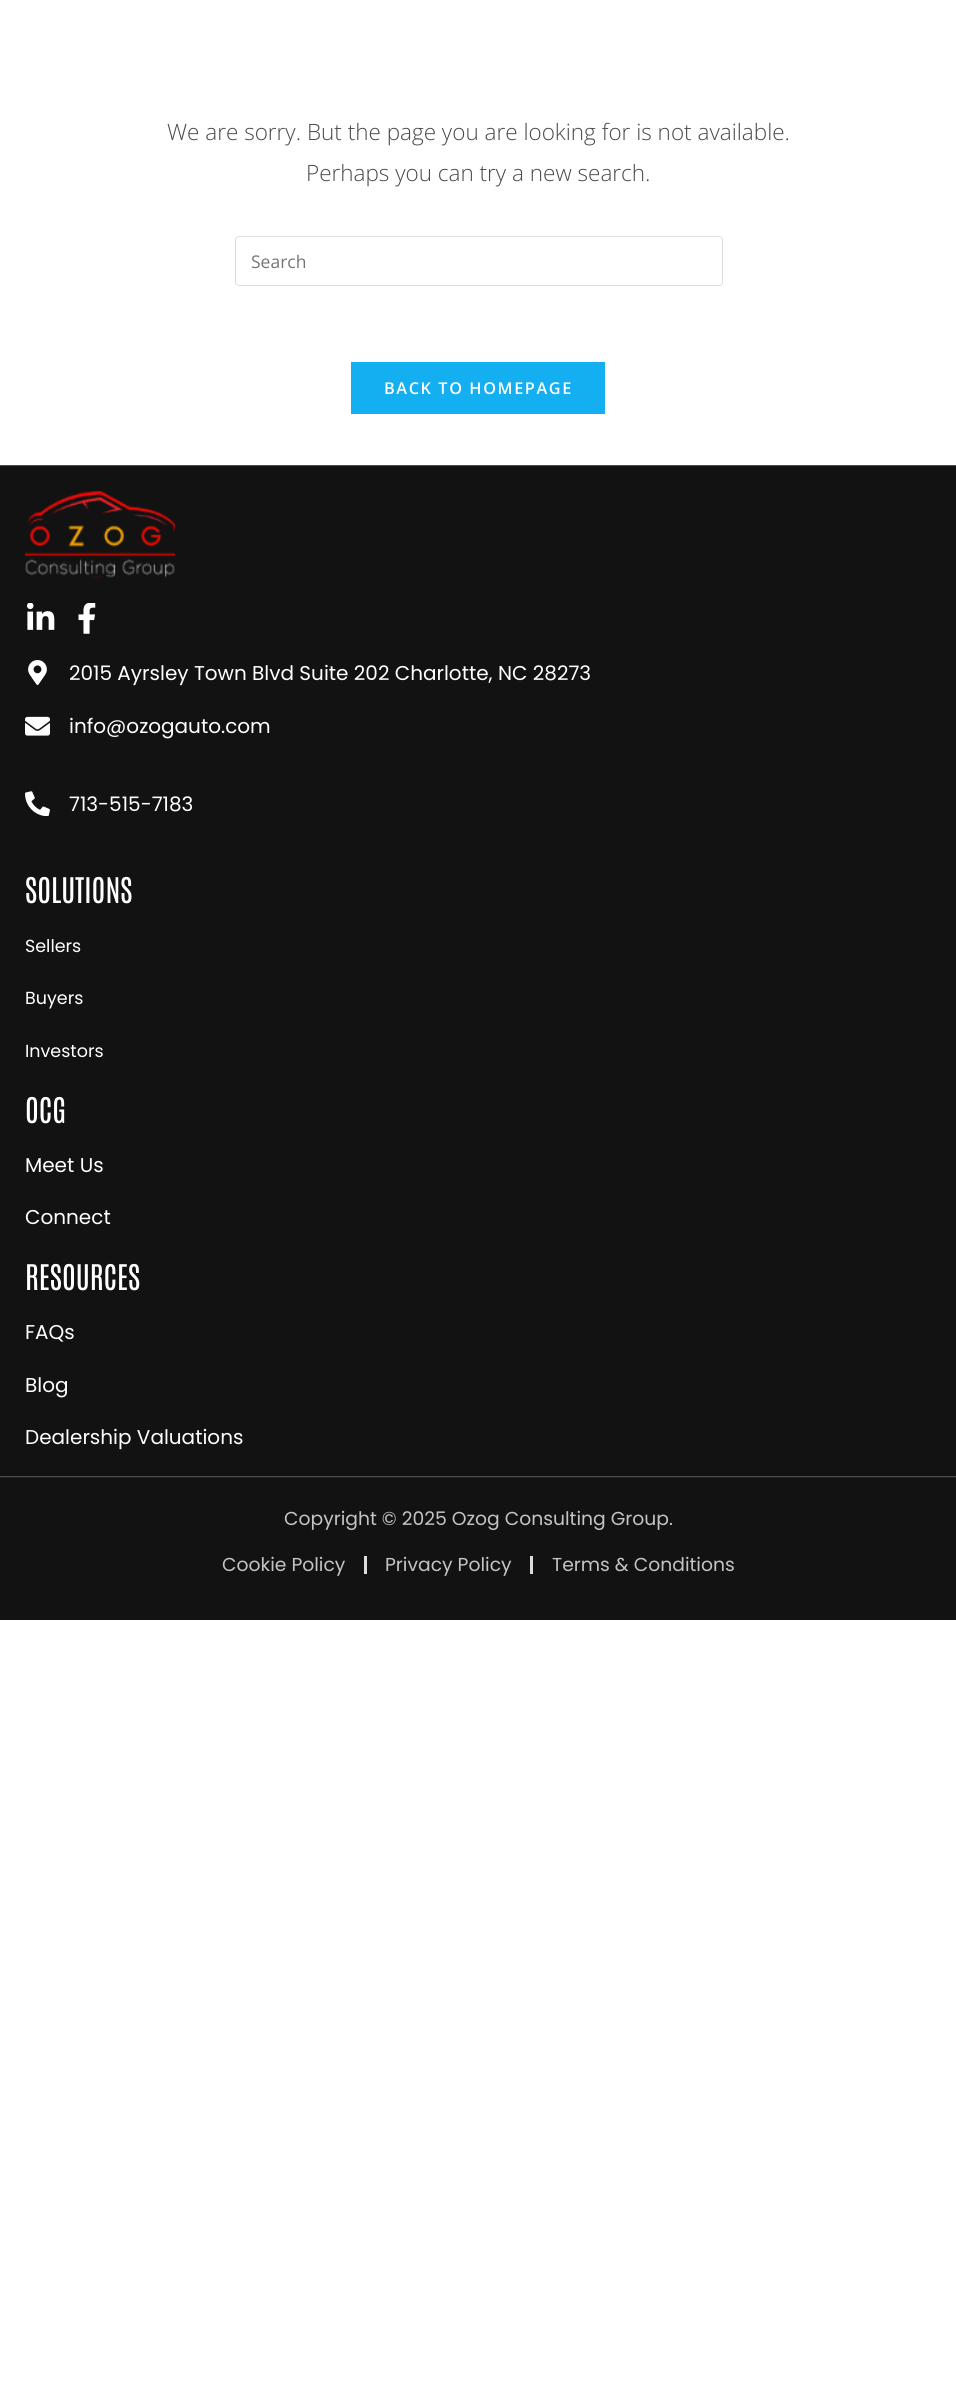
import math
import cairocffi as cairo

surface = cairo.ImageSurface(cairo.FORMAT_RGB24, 956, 2397)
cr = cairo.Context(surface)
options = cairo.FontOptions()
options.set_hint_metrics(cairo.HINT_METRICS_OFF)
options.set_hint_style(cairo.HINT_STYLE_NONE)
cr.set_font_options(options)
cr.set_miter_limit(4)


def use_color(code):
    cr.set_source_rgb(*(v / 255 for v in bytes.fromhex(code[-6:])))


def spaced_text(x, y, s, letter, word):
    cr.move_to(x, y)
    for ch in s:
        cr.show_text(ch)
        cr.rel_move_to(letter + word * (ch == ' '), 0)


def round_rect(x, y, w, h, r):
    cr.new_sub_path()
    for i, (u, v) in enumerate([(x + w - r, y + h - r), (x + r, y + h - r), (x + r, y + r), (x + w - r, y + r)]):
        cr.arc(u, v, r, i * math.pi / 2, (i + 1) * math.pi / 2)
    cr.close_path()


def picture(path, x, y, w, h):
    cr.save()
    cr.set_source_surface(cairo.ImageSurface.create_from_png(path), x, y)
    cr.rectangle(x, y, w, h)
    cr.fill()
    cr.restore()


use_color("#ffffff")
cr.paint()
cr.select_font_face("Open Sans Light")
cr.set_font_size(22.5)
use_color("#4a4a4a")
cr.move_to(167, 140)
cr.show_text("We are sorry. But the page you are looking for is not available.")
cr.move_to(306, 181)
cr.show_text("Perhaps you can try a new search.")
round_rect(235.5, 236.5, 487, 49, 3.5)
use_color("#dddddd")
cr.set_line_width(1)
cr.stroke()
cr.select_font_face("Open Sans")
cr.set_font_size(17.5)
use_color("#757575")
cr.move_to(251, 268)
cr.show_text("Search")
use_color("#13aff0")
cr.rectangle(351, 362, 254, 52)
cr.fill()
cr.select_font_face("Open Sans SemiBold")
cr.set_font_size(16.25)
use_color("#ffffff")
spaced_text(384, 394, "BACK TO HOMEPAGE", 1.6, 0)
use_color("#222222")
cr.rectangle(0, 1477, 956, 1)
cr.fill()
use_color("#121212")
cr.rectangle(0, 466, 956, 1010)
cr.fill()
use_color("#4d4d4d")
cr.rectangle(0, 465, 956, 1)
cr.fill()
cr.rectangle(0, 1476, 956, 1)
cr.fill()
picture("img1.png", 25, 491, 150, 87)
picture("img2.png", 27, 603, 28, 27)
picture("img3.png", 78, 603, 18, 31)
picture("img4.png", 28, 660, 19, 25)
cr.select_font_face("Poppins")
cr.set_font_size(20)
use_color("#ffffff")
cr.move_to(69, 680)
cr.show_text("2015 Ayrsley Town Blvd Suite 202 Charlotte, NC 28273")
picture("img5.png", 25, 716, 25, 20)
cr.move_to(69, 733)
cr.show_text("info@ozogauto.com")
picture("img6.png", 25, 791, 25, 25)
cr.move_to(69, 811)
cr.show_text("713-515-7183")
cr.select_font_face("Antonio")
cr.set_font_size(30)
cr.move_to(25, 903)
cr.show_text("SOLUTIONS")
cr.select_font_face("Poppins")
cr.set_font_size(17.5)
cr.move_to(25, 952)
cr.show_text("Sellers")
cr.move_to(25, 1004)
cr.show_text("Buyers")
cr.move_to(25, 1057)
cr.show_text("Investors")
cr.select_font_face("Antonio")
cr.set_font_size(30)
cr.move_to(25, 1123)
cr.show_text("OCG")
cr.select_font_face("Poppins")
cr.set_font_size(20)
cr.move_to(25, 1172)
cr.show_text("Meet Us")
cr.move_to(25, 1224)
cr.show_text("Connect")
cr.select_font_face("Antonio")
cr.set_font_size(30)
cr.move_to(25, 1290)
cr.show_text("RESOURCES")
cr.select_font_face("Poppins")
cr.set_font_size(20)
cr.move_to(25, 1339)
cr.show_text("FAQs")
cr.move_to(25, 1392)
cr.show_text("Blog")
cr.move_to(25, 1444)
cr.show_text("Dealership Valuations")
use_color("#121212")
cr.rectangle(0, 1478, 956, 142)
cr.fill()
cr.set_font_size(18.75)
use_color("#c4c4c4")
cr.move_to(284, 1525)
cr.show_text("Copyright © 2025 Ozog Consulting Group.")
cr.move_to(222, 1571)
cr.show_text("Cookie Policy")
use_color("#dddddd")
cr.rectangle(364, 1556, 3, 18)
cr.fill()
use_color("#c4c4c4")
cr.move_to(385, 1571)
cr.show_text("Privacy Policy")
use_color("#dddddd")
cr.rectangle(530, 1556, 3, 18)
cr.fill()
use_color("#c4c4c4")
cr.move_to(552, 1571)
cr.show_text("Terms & Conditions")
surface.write_to_png("result.png")
